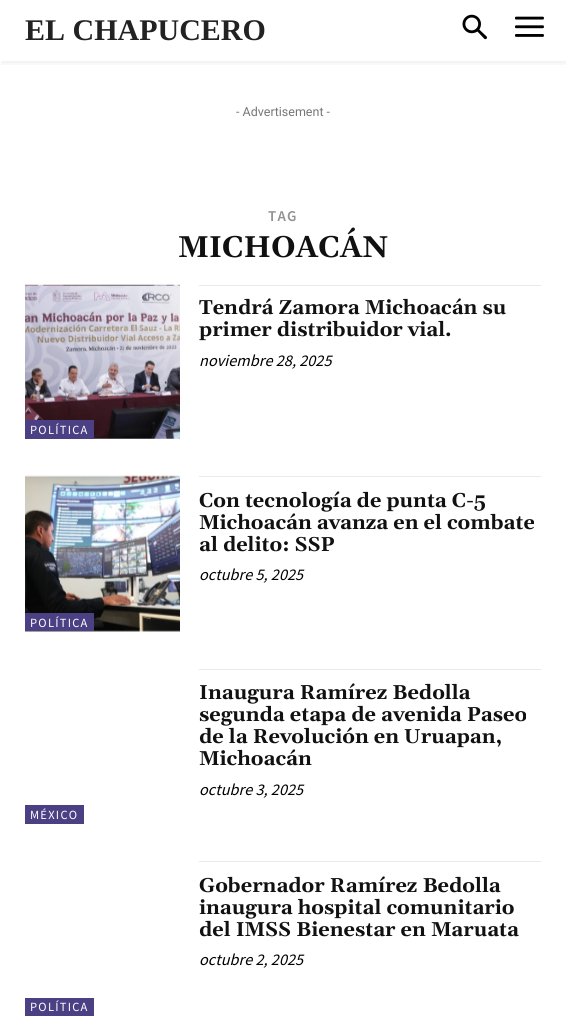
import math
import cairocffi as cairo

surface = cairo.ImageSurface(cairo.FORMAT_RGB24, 566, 1025)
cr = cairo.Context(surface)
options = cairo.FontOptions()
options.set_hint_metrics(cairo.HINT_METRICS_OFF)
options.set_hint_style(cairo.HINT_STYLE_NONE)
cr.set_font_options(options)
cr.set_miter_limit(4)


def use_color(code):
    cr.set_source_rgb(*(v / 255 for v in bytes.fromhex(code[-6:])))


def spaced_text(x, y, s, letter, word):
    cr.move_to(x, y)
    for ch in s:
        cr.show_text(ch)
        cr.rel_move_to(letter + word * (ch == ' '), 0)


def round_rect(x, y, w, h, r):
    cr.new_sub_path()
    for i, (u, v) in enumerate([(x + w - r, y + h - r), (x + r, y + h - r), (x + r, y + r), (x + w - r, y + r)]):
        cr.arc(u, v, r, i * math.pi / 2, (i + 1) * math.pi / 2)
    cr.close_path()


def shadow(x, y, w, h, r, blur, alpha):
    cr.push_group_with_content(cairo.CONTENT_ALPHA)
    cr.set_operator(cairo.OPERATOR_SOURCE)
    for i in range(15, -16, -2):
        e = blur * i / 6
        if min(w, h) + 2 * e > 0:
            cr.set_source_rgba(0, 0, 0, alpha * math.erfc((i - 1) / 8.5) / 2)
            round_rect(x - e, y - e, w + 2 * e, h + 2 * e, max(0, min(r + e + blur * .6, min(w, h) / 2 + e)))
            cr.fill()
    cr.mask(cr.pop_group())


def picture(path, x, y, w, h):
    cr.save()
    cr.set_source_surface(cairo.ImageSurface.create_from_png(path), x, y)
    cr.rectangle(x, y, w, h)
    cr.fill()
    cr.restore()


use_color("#ffffff")
cr.paint()
picture("img1.png", 462, 14, 25, 26)
picture("img2.png", 515, 16, 29, 21)
cr.save()
cr.rectangle(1, 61, 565, 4)
cr.clip()
use_color("#000000")
shadow(1, 3, 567, 61, 0, 2.5, 0.06)
cr.restore()
cr.select_font_face("Liberation Serif", cairo.FONT_SLANT_NORMAL, cairo.FONT_WEIGHT_BOLD)
cr.set_font_size(30)
use_color("#222222")
cr.move_to(25, 40)
cr.show_text("EL CHAPUCERO")
cr.select_font_face("Roboto")
cr.set_font_size(12.5)
use_color("#767676")
cr.move_to(236, 116)
cr.show_text("- Advertisement -")
cr.select_font_face("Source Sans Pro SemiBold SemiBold")
cr.set_font_size(15)
use_color("#919191")
spaced_text(268, 221, "TAG", 1.25, 0)
cr.select_font_face("Gelasio", cairo.FONT_SLANT_NORMAL, cairo.FONT_WEIGHT_BOLD)
cr.set_font_size(30)
use_color("#111111")
cr.move_to(178, 257)
cr.show_text("MICHOACÁN")
use_color("#eaeaea")
cr.rectangle(199, 285, 342, 1)
cr.fill()
cr.set_font_size(20)
use_color("#111111")
cr.move_to(199, 314)
cr.show_text("Tendrá Zamora Michoacán su")
cr.move_to(199, 336)
cr.show_text("primer distribuidor vial.")
cr.select_font_face("Source Sans Pro", cairo.FONT_SLANT_ITALIC)
cr.set_font_size(16.25)
use_color("#000000")
cr.move_to(199, 366)
cr.show_text("noviembre 28, 2025")
picture("img3.png", 25, 284, 155, 155)
use_color("#4c4084")
cr.rectangle(25, 420, 69, 19)
cr.fill()
cr.select_font_face("Source Sans Pro")
cr.set_font_size(12.5)
use_color("#ffffff")
spaced_text(30, 434, "POLÍTICA", 1.25, 0)
use_color("#eaeaea")
cr.rectangle(199, 476, 342, 1)
cr.fill()
cr.select_font_face("Gelasio", cairo.FONT_SLANT_NORMAL, cairo.FONT_WEIGHT_BOLD)
cr.set_font_size(20)
use_color("#111111")
cr.move_to(199, 507)
cr.show_text("Con tecnología de punta C-5")
cr.move_to(199, 529)
cr.show_text("Michoacán avanza en el combate")
cr.move_to(199, 551)
cr.show_text("al delito: SSP")
cr.select_font_face("Source Sans Pro", cairo.FONT_SLANT_ITALIC)
cr.set_font_size(16.25)
use_color("#000000")
cr.move_to(199, 580)
cr.show_text("octubre 5, 2025")
picture("img4.png", 25, 475, 155, 157)
use_color("#4c4084")
cr.rectangle(25, 613, 69, 18)
cr.fill()
cr.select_font_face("Source Sans Pro")
cr.set_font_size(12.5)
use_color("#ffffff")
spaced_text(30, 627, "POLÍTICA", 1.25, 0)
use_color("#eaeaea")
cr.rectangle(199, 669, 342, 1)
cr.fill()
cr.select_font_face("Gelasio", cairo.FONT_SLANT_NORMAL, cairo.FONT_WEIGHT_BOLD)
cr.set_font_size(20)
use_color("#111111")
cr.move_to(199, 699)
cr.show_text("Inaugura Ramírez Bedolla")
cr.move_to(199, 721)
cr.show_text("segunda etapa de avenida Paseo")
cr.move_to(199, 743)
cr.show_text("de la Revolución en Uruapan,")
cr.move_to(199, 765)
cr.show_text("Michoacán")
cr.select_font_face("Source Sans Pro", cairo.FONT_SLANT_ITALIC)
cr.set_font_size(16.25)
use_color("#000000")
cr.move_to(199, 795)
cr.show_text("octubre 3, 2025")
use_color("#4c4084")
cr.rectangle(25, 805, 59, 19)
cr.fill()
cr.select_font_face("Source Sans Pro")
cr.set_font_size(12.5)
use_color("#ffffff")
spaced_text(30, 819, "MÉXICO", 1.25, 0)
use_color("#eaeaea")
cr.rectangle(199, 861, 342, 1)
cr.fill()
cr.select_font_face("Gelasio", cairo.FONT_SLANT_NORMAL, cairo.FONT_WEIGHT_BOLD)
cr.set_font_size(20)
use_color("#111111")
cr.move_to(199, 892)
cr.show_text("Gobernador Ramírez Bedolla")
cr.move_to(199, 914)
cr.show_text("inaugura hospital comunitario")
cr.move_to(199, 936)
cr.show_text("del IMSS Bienestar en Maruata")
cr.select_font_face("Source Sans Pro", cairo.FONT_SLANT_ITALIC)
cr.set_font_size(16.25)
use_color("#000000")
cr.move_to(199, 965)
cr.show_text("octubre 2, 2025")
use_color("#4c4084")
cr.rectangle(25, 998, 69, 18)
cr.fill()
cr.select_font_face("Source Sans Pro")
cr.set_font_size(12.5)
use_color("#ffffff")
spaced_text(30, 1011, "POLÍTICA", 1.25, 0)
surface.write_to_png("result.png")
